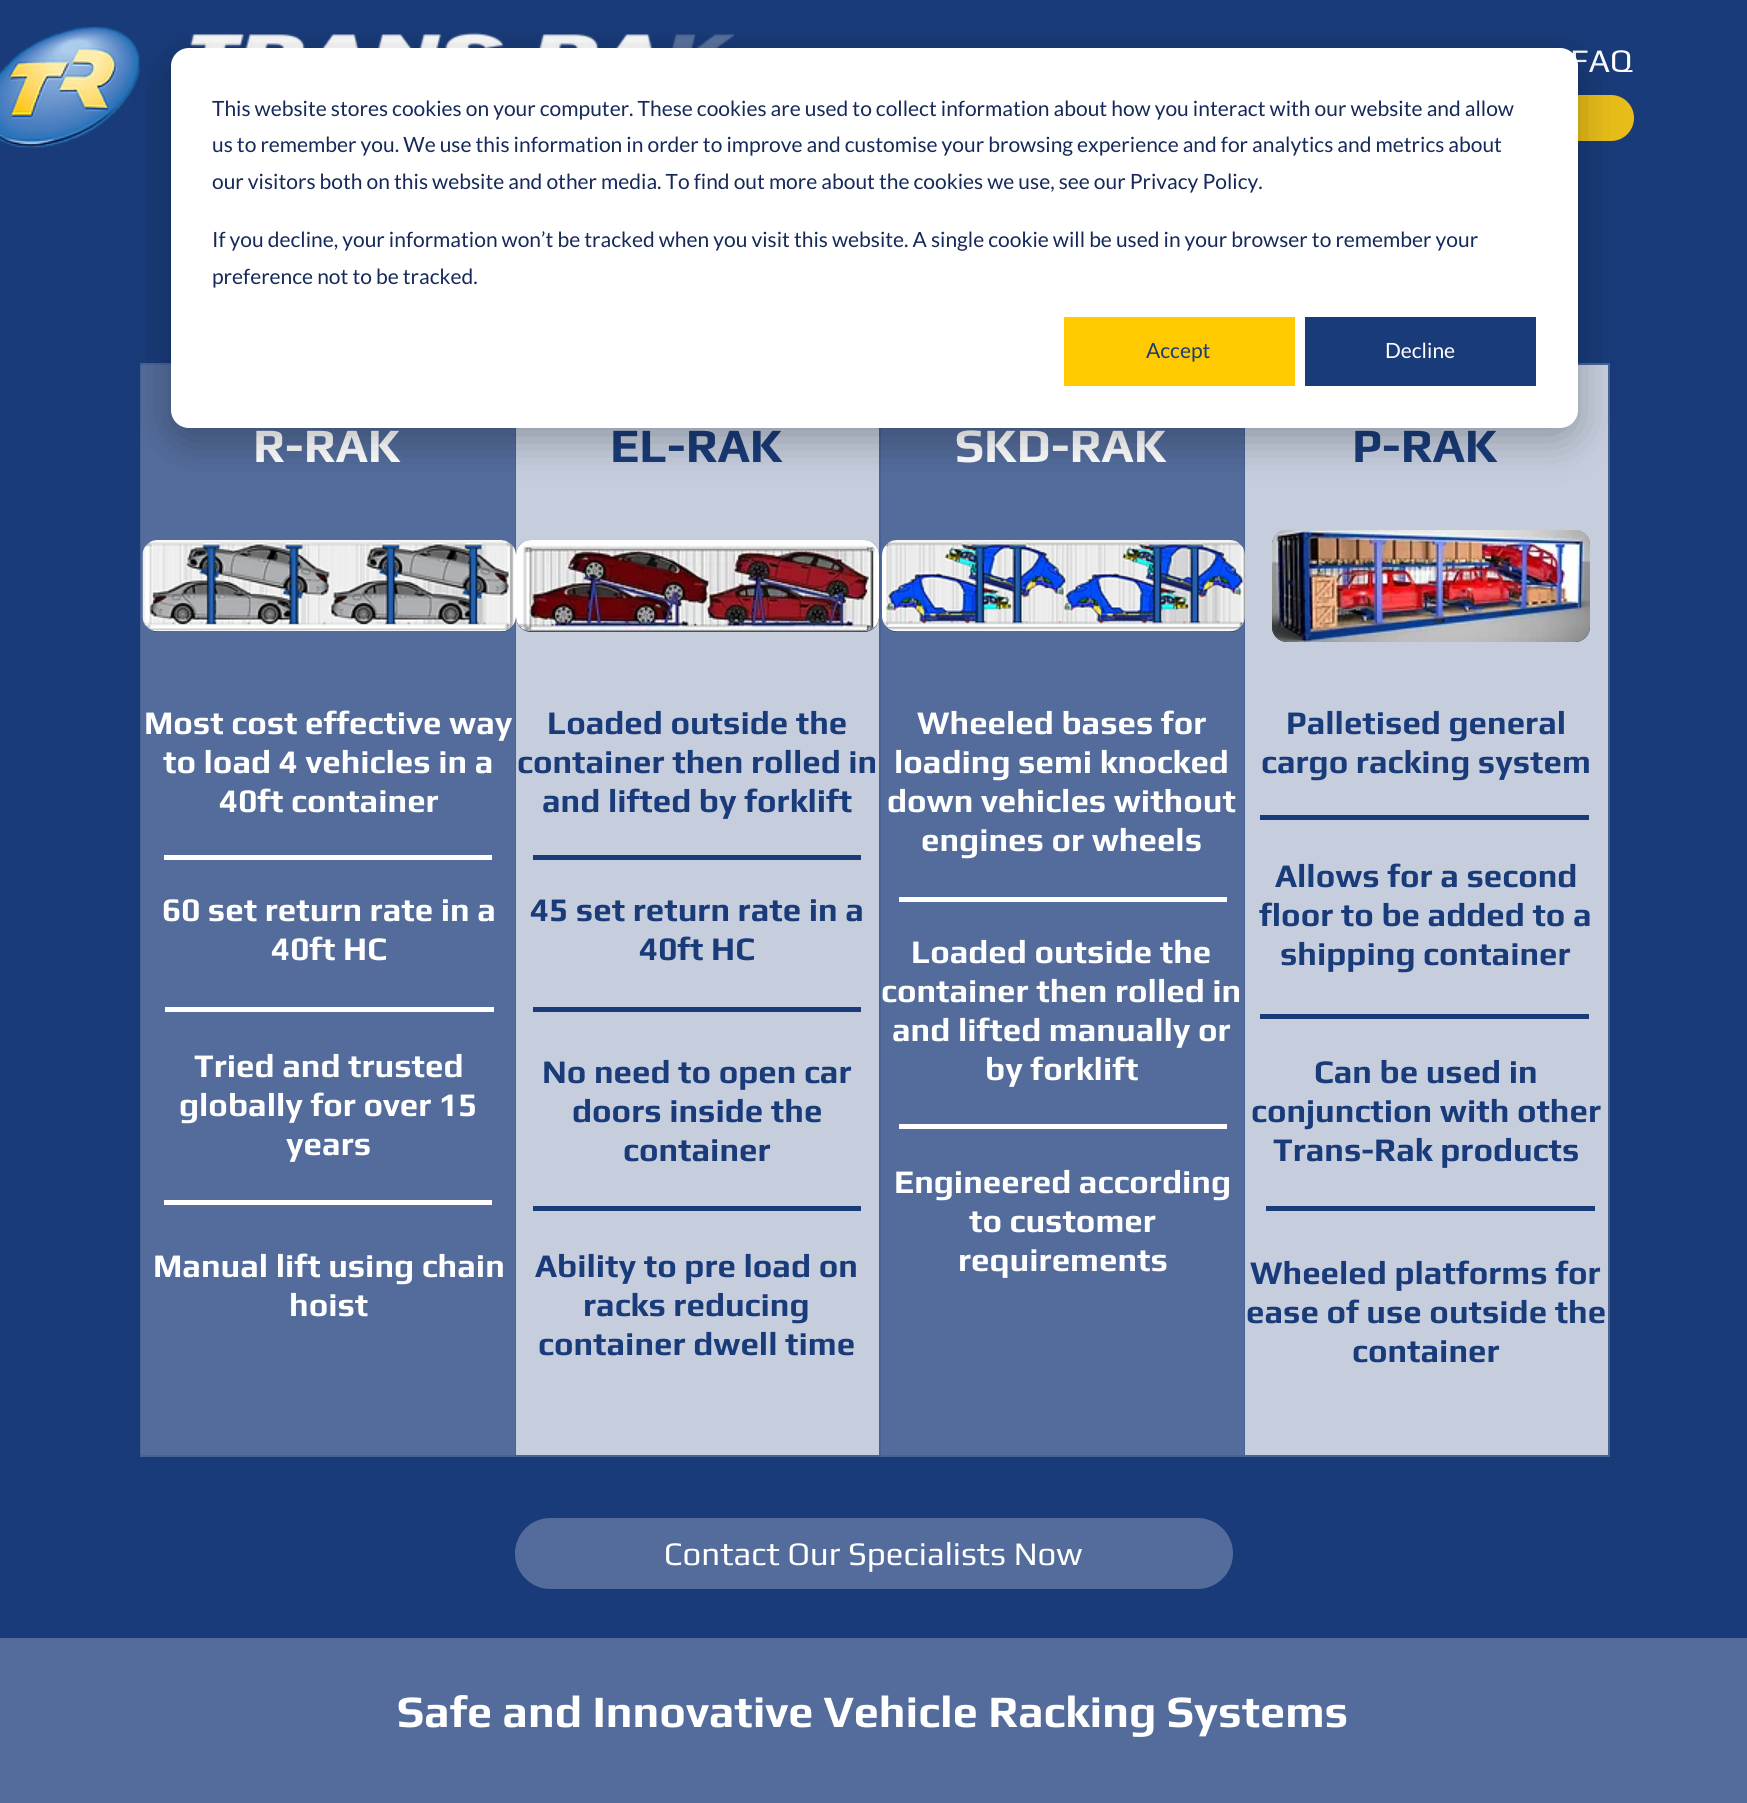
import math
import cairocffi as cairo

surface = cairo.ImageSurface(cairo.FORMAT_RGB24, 1747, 1803)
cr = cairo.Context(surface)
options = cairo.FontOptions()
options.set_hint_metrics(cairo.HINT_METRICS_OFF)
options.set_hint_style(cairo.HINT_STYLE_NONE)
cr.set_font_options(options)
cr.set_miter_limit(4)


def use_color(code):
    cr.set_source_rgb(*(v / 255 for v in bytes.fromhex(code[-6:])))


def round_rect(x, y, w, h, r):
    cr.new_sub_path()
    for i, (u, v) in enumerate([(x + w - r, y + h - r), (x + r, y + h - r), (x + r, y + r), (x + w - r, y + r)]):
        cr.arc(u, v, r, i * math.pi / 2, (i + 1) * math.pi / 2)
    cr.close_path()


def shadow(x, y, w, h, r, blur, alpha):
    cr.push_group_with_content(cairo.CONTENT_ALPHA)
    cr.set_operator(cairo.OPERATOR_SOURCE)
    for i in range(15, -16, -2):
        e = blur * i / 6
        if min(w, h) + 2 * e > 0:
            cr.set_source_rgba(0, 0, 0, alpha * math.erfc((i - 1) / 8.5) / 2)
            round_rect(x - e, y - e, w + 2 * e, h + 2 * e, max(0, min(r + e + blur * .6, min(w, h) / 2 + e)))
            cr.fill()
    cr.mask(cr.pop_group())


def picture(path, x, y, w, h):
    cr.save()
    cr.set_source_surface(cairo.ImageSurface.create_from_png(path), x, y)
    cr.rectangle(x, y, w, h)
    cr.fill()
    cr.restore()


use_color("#193b79")
cr.paint()
picture("img1.png", 0, 26, 736, 123)
cr.set_source_rgba(0.098, 0.231, 0.475, 0.71)
cr.rectangle(654, 34, 82, 105)
cr.fill()
cr.select_font_face("Play")
cr.set_font_size(33)
use_color("#ffffff")
cr.move_to(1570, 72)
cr.show_text("FAQ")
use_color("#e8bd19")
round_rect(1368, 95, 266, 46, 23)
cr.fill()
use_color("#476295")
cr.rectangle(140, 363, 1470, 1094)
cr.fill()
use_color("#536c9b")
cr.rectangle(141, 365, 374, 1090)
cr.fill()
cr.select_font_face("Play", cairo.FONT_SLANT_NORMAL, cairo.FONT_WEIGHT_BOLD)
cr.set_font_size(48)
use_color("#ffffff")
cr.move_to(253, 462)
cr.show_text("R-RAK")
use_color("#193b79")
round_rect(143, 540, 373, 92, 15)
cr.fill()
picture("img2.png", 142, 540, 374, 92)
cr.set_font_size(33)
use_color("#ffffff")
cr.move_to(144, 734)
cr.show_text("Most cost effective way")
cr.move_to(163, 773)
cr.show_text("to load 4 vehicles in a")
cr.move_to(219, 812)
cr.show_text("40ft container")
cr.rectangle(164, 855, 328, 5)
cr.fill()
cr.move_to(162, 921)
cr.show_text("60 set return rate in a")
cr.move_to(271, 960)
cr.show_text("40ft HC")
cr.rectangle(165, 1007, 329, 5)
cr.fill()
cr.move_to(194, 1077)
cr.show_text("Tried and trusted")
cr.move_to(179, 1116)
cr.show_text("globally for over 15")
cr.move_to(286, 1155)
cr.show_text("years")
cr.rectangle(164, 1200, 328, 5)
cr.fill()
cr.move_to(153, 1277)
cr.show_text("Manual lift using chain")
cr.move_to(289, 1316)
cr.show_text("hoist")
use_color("#c6cede")
cr.rectangle(516, 428, 363, 1027)
cr.fill()
cr.set_font_size(48)
use_color("#193b79")
cr.move_to(610, 462)
cr.show_text("EL-RAK")
round_rect(516, 540, 363, 92, 15)
cr.fill()
picture("img3.png", 516, 540, 363, 92)
cr.set_font_size(33)
cr.move_to(547, 734)
cr.show_text("Loaded outside the")
cr.move_to(517, 773)
cr.show_text("container then rolled in")
cr.move_to(542, 812)
cr.show_text("and lifted by forklift")
cr.rectangle(533, 855, 328, 5)
cr.fill()
cr.move_to(530, 921)
cr.show_text("45 set return rate in a")
cr.move_to(639, 960)
cr.show_text("40ft HC")
cr.rectangle(533, 1007, 328, 5)
cr.fill()
cr.move_to(542, 1083)
cr.show_text("No need to open car")
cr.move_to(572, 1122)
cr.show_text("doors inside the")
cr.move_to(623, 1161)
cr.show_text("container")
cr.rectangle(533, 1206, 328, 5)
cr.fill()
cr.move_to(535, 1277)
cr.show_text("Ability to pre load on")
cr.move_to(583, 1316)
cr.show_text("racks reducing")
cr.move_to(538, 1355)
cr.show_text("container dwell time")
use_color("#536c9b")
cr.rectangle(881, 428, 363, 1027)
cr.fill()
cr.set_font_size(48)
use_color("#ffffff")
cr.move_to(955, 462)
cr.show_text("SKD-RAK")
use_color("#193b79")
round_rect(882, 540, 363, 92, 15)
cr.fill()
picture("img4.png", 882, 540, 363, 92)
cr.set_font_size(33)
use_color("#ffffff")
cr.move_to(917, 734)
cr.show_text("Wheeled bases for")
cr.move_to(894, 773)
cr.show_text("loading semi knocked")
cr.move_to(887, 812)
cr.show_text("down vehicles without")
cr.move_to(921, 851)
cr.show_text("engines or wheels")
cr.rectangle(899, 897, 328, 5)
cr.fill()
cr.move_to(911, 963)
cr.show_text("Loaded outside the")
cr.move_to(881, 1002)
cr.show_text("container then rolled in")
cr.move_to(892, 1041)
cr.show_text("and lifted manually or")
cr.move_to(985, 1080)
cr.show_text("by forklift")
cr.rectangle(899, 1124, 328, 5)
cr.fill()
cr.move_to(894, 1193)
cr.show_text("Engineered according")
cr.move_to(969, 1232)
cr.show_text("to customer")
cr.move_to(958, 1271)
cr.show_text("requirements")
use_color("#c6cede")
cr.rectangle(1245, 365, 363, 1090)
cr.fill()
cr.set_font_size(48)
use_color("#193b79")
cr.move_to(1352, 462)
cr.show_text("P-RAK")
round_rect(1272, 530, 318, 112, 15)
cr.fill()
picture("img5.png", 1272, 530, 318, 112)
cr.set_font_size(33)
cr.move_to(1286, 734)
cr.show_text("Palletised general")
cr.move_to(1261, 773)
cr.show_text("cargo racking system")
cr.rectangle(1260, 815, 329, 5)
cr.fill()
cr.move_to(1275, 887)
cr.show_text("Allows for a second")
cr.move_to(1259, 926)
cr.show_text("floor to be added to a")
cr.move_to(1280, 965)
cr.show_text("shipping container")
cr.rectangle(1260, 1014, 329, 5)
cr.fill()
cr.move_to(1314, 1083)
cr.show_text("Can be used in")
cr.move_to(1251, 1122)
cr.show_text("conjunction with other")
cr.move_to(1273, 1161)
cr.show_text("Trans-Rak products")
cr.rectangle(1266, 1206, 329, 5)
cr.fill()
cr.move_to(1250, 1284)
cr.show_text("Wheeled platforms for")
cr.move_to(1246, 1323)
cr.show_text("ease of use outside the")
cr.move_to(1352, 1362)
cr.show_text("container")
use_color("#536c9b")
round_rect(515, 1518, 718, 71, 35.5)
cr.fill()
cr.select_font_face("Play")
use_color("#ffffff")
cr.move_to(664, 1565)
cr.show_text("Contact Our Specialists Now")
use_color("#536c9b")
cr.rectangle(0, 1638, 1747, 165)
cr.fill()
cr.select_font_face("Play", cairo.FONT_SLANT_NORMAL, cairo.FONT_WEIGHT_BOLD)
cr.set_font_size(45)
use_color("#ffffff")
cr.move_to(397, 1727)
cr.show_text("Safe and Innovative Vehicle Racking Systems")
use_color("#000000")
shadow(171, 60, 1407, 380, 18, 21, 0.28)
use_color("#ffffff")
round_rect(171, 48, 1407, 380, 18)
cr.fill()
cr.select_font_face("Lato")
cr.set_font_size(21)
use_color("#15295a")
cr.move_to(212, 116)
cr.show_text("This website stores cookies on your computer. These cookies are used to collect information about how you interact with our website and allow")
cr.move_to(212, 152)
cr.show_text("us to remember you. We use this information in order to improve and customise your browsing experience and for analytics and metrics about")
cr.move_to(212, 189)
cr.show_text("our visitors both on this website and other media. To find out more about the cookies we use, see our Privacy Policy.")
cr.move_to(212, 247)
cr.show_text("If you decline, your information won’t be tracked when you visit this website. A single cookie will be used in your browser to remember your")
cr.move_to(212, 284)
cr.show_text("preference not to be tracked.")
use_color("#ffca00")
cr.rectangle(1064, 317, 231, 69)
cr.fill()
use_color("#193b79")
cr.move_to(1146, 358)
cr.show_text("Accept")
cr.rectangle(1305, 317, 231, 69)
cr.fill()
use_color("#ffffff")
cr.move_to(1385, 358)
cr.show_text("Decline")
surface.write_to_png("result.png")
